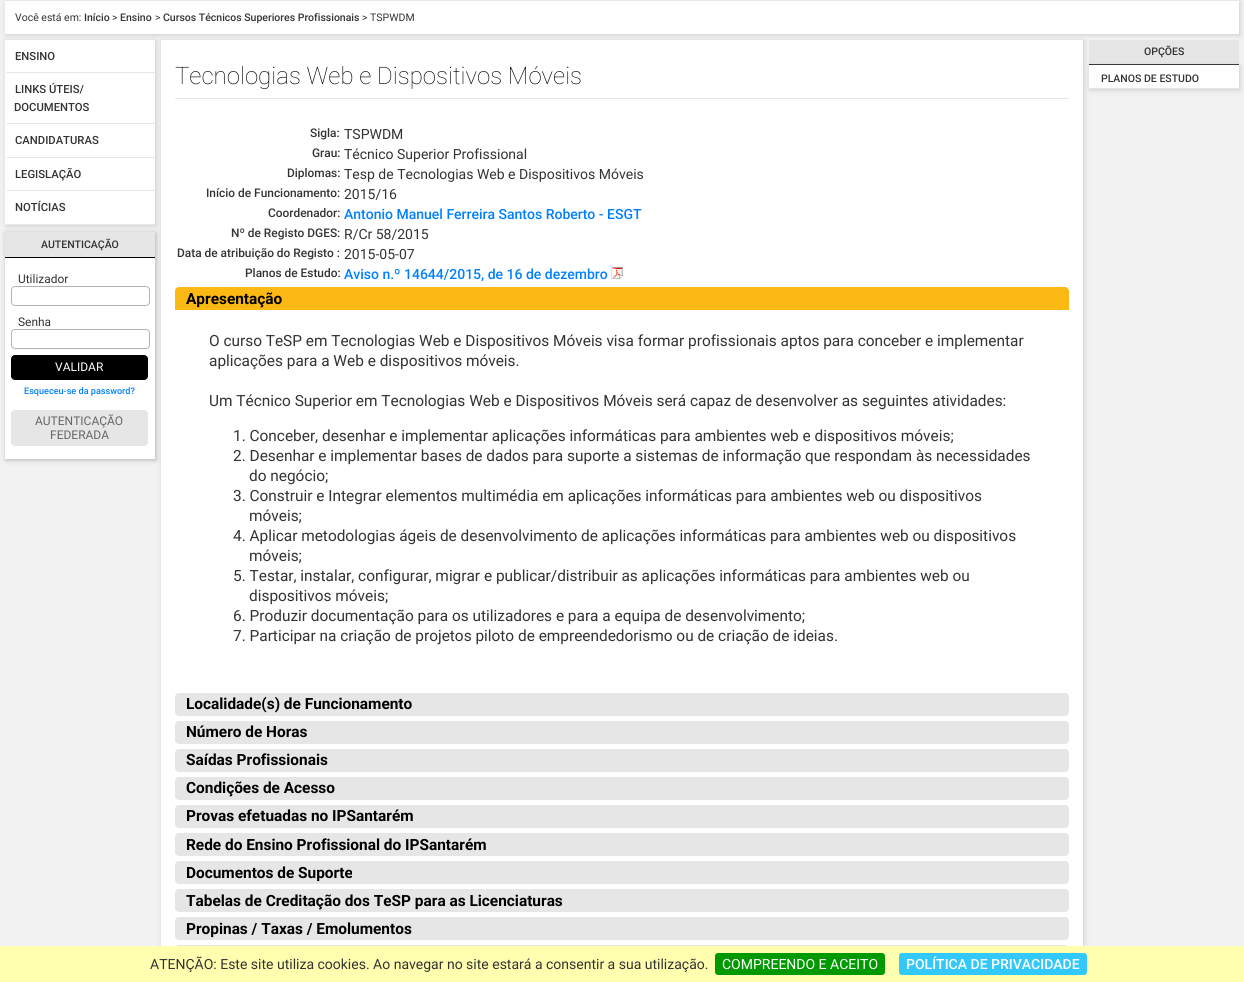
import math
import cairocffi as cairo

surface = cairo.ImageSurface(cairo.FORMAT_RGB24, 1244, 982)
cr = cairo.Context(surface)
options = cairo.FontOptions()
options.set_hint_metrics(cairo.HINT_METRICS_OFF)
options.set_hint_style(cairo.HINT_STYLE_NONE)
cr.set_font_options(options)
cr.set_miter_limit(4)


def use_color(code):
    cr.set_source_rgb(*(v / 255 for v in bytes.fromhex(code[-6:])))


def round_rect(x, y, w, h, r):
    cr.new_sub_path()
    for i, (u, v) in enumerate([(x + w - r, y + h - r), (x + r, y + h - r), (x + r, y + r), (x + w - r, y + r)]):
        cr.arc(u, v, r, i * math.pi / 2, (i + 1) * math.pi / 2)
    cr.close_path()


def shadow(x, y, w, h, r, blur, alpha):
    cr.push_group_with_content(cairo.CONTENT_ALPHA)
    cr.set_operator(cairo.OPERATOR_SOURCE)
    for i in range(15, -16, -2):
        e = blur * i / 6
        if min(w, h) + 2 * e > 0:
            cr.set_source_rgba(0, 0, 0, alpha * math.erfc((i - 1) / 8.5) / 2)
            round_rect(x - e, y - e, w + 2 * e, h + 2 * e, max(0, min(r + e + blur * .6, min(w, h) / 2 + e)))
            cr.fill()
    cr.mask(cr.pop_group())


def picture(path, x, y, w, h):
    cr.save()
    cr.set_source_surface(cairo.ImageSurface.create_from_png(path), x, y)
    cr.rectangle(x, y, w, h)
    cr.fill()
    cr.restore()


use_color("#f2f2f2")
cr.paint()
use_color("#cccccc")
shadow(6, 2, 1234, 33, 0, 2.5, 1)
use_color("#ffffff")
cr.rectangle(5, 1, 1234, 33)
cr.fill()
cr.select_font_face("Roboto")
cr.set_font_size(10.5)
use_color("#333333")
cr.move_to(15, 21)
cr.show_text("Você está em:")
cr.select_font_face("Roboto Medium")
cr.move_to(84, 21)
cr.show_text("Início")
cr.select_font_face("Roboto")
cr.move_to(112, 21)
cr.show_text(">")
cr.select_font_face("Roboto Medium")
cr.move_to(120, 21)
cr.show_text("Ensino")
cr.select_font_face("Roboto")
cr.move_to(155, 21)
cr.show_text(">")
cr.select_font_face("Roboto Medium")
cr.move_to(163, 21)
cr.show_text("Cursos Técnicos Superiores Profissionais")
cr.select_font_face("Roboto")
cr.move_to(362, 21)
cr.show_text("> TSPWDM")
use_color("#cccccc")
shadow(6, 41, 150, 185, 0, 2.5, 1)
use_color("#ffffff")
cr.rectangle(5, 40, 150, 185)
cr.fill()
use_color("#e6e6e6")
cr.new_path()
cr.move_to(155, 73)
cr.line_to(5, 73)
cr.line_to(7, 72)
cr.line_to(155, 72)
cr.close_path()
cr.fill()
use_color("#ffffff")
cr.new_path()
cr.move_to(5, 73)
cr.line_to(5, 40)
cr.line_to(7, 40)
cr.line_to(7, 72)
cr.close_path()
cr.fill()
cr.select_font_face("Roboto Medium")
cr.set_font_size(11.25)
use_color("#333333")
cr.move_to(15, 60)
cr.show_text("ENSINO")
use_color("#e6e6e6")
cr.new_path()
cr.move_to(155, 124)
cr.line_to(5, 124)
cr.line_to(7, 123)
cr.line_to(155, 123)
cr.close_path()
cr.fill()
use_color("#ffffff")
cr.new_path()
cr.move_to(5, 124)
cr.line_to(5, 73)
cr.line_to(7, 73)
cr.line_to(7, 123)
cr.close_path()
cr.fill()
use_color("#333333")
cr.move_to(15, 93)
cr.show_text("LINKS ÚTEIS/")
cr.move_to(14, 111)
cr.show_text("DOCUMENTOS")
use_color("#e6e6e6")
cr.new_path()
cr.move_to(155, 158)
cr.line_to(5, 158)
cr.line_to(7, 157)
cr.line_to(155, 157)
cr.close_path()
cr.fill()
use_color("#ffffff")
cr.new_path()
cr.move_to(5, 158)
cr.line_to(5, 124)
cr.line_to(7, 124)
cr.line_to(7, 157)
cr.close_path()
cr.fill()
use_color("#333333")
cr.move_to(15, 144)
cr.show_text("CANDIDATURAS")
use_color("#e6e6e6")
cr.new_path()
cr.move_to(155, 191)
cr.line_to(5, 191)
cr.line_to(7, 190)
cr.line_to(155, 190)
cr.close_path()
cr.fill()
use_color("#ffffff")
cr.new_path()
cr.move_to(5, 191)
cr.line_to(5, 158)
cr.line_to(7, 158)
cr.line_to(7, 190)
cr.close_path()
cr.fill()
use_color("#333333")
cr.move_to(15, 178)
cr.show_text("LEGISLAÇÃO")
use_color("#e6e6e6")
cr.new_path()
cr.move_to(155, 225)
cr.line_to(5, 225)
cr.line_to(7, 224)
cr.line_to(155, 224)
cr.close_path()
cr.fill()
use_color("#ffffff")
cr.new_path()
cr.move_to(5, 225)
cr.line_to(5, 191)
cr.line_to(7, 191)
cr.line_to(7, 224)
cr.close_path()
cr.fill()
use_color("#333333")
cr.move_to(15, 211)
cr.show_text("NOTÍCIAS")
use_color("#b3b3b3")
shadow(6, 233, 150, 227, 0, 2.5, 1)
use_color("#ffffff")
cr.rectangle(5, 258, 150, 201)
cr.fill()
use_color("#e6e6e6")
cr.rectangle(5, 232, 150, 25)
cr.fill()
use_color("#000000")
cr.rectangle(5, 257, 150, 1)
cr.fill()
cr.set_font_size(10.5)
use_color("#333333")
cr.move_to(41, 248)
cr.show_text("AUTENTICAÇÃO")
cr.select_font_face("Roboto")
cr.set_font_size(11.9)
cr.move_to(18, 283)
cr.show_text("Utilizador")
round_rect(11.5, 286.5, 138, 19, 3.5)
use_color("#b3b3b3")
cr.set_line_width(1)
cr.stroke()
use_color("#333333")
cr.move_to(18, 326)
cr.show_text("Senha")
round_rect(11.5, 329.5, 138, 19, 3.5)
use_color("#b3b3b3")
cr.stroke()
use_color("#000000")
round_rect(11.5, 355.5, 136, 24, 3.5)
cr.fill_preserve()
cr.stroke()
cr.set_font_size(12)
use_color("#ffffff")
cr.move_to(55, 371)
cr.show_text("VALIDAR")
cr.select_font_face("Roboto Medium")
cr.set_font_size(9.1)
use_color("#0080ff")
cr.move_to(24, 394)
cr.show_text("Esqueceu-se da password?")
use_color("#e6e6e6")
round_rect(11.5, 410.5, 136, 35, 3.5)
cr.fill_preserve()
cr.stroke()
cr.select_font_face("Roboto")
cr.set_font_size(12)
use_color("#666666")
cr.move_to(35, 425)
cr.show_text("AUTENTICAÇÃO")
cr.move_to(50, 439)
cr.show_text("FEDERADA")
use_color("#e6e6e6")
cr.rectangle(1089, 40, 150, 24)
cr.fill()
use_color("#000000")
cr.rectangle(1089, 64, 150, 1)
cr.fill()
use_color("#cccccc")
shadow(1090, 66, 150, 24, 0, 2.5, 1)
use_color("#ffffff")
cr.rectangle(1089, 65, 150, 23)
cr.fill()
use_color("#e6e6e6")
cr.rectangle(1089, 88, 150, 1)
cr.fill()
use_color("#cccccc")
shadow(162, 41, 922, 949, 0, 2.5, 1)
use_color("#ffffff")
cr.rectangle(161, 40, 922, 906)
cr.fill()
use_color("#e6e6e6")
cr.rectangle(175, 98, 894, 1)
cr.fill()
cr.select_font_face("Roboto Thin")
cr.set_font_size(24)
use_color("#000000")
cr.move_to(175, 84)
cr.show_text("Tecnologias Web e Dispositivos Móveis")
cr.select_font_face("Roboto Medium")
cr.set_font_size(11.9)
use_color("#333333")
cr.move_to(310, 137)
cr.show_text("Sigla:")
cr.select_font_face("Roboto")
cr.set_font_size(14)
cr.move_to(344, 139)
cr.show_text("TSPWDM")
cr.select_font_face("Roboto Medium")
cr.set_font_size(11.9)
cr.move_to(312, 157)
cr.show_text("Grau:")
cr.select_font_face("Roboto")
cr.set_font_size(14)
cr.move_to(344, 159)
cr.show_text("Técnico Superior Profissional")
cr.select_font_face("Roboto Medium")
cr.set_font_size(11.9)
cr.move_to(287, 177)
cr.show_text("Diplomas:")
cr.select_font_face("Roboto")
cr.set_font_size(14)
cr.move_to(344, 179)
cr.show_text("Tesp de Tecnologias Web e Dispositivos Móveis")
cr.select_font_face("Roboto Medium")
cr.set_font_size(11.9)
cr.move_to(206, 197)
cr.show_text("Início de Funcionamento:")
cr.select_font_face("Roboto")
cr.set_font_size(14)
cr.move_to(344, 199)
cr.show_text("2015/16")
cr.select_font_face("Roboto Medium")
cr.set_font_size(11.9)
cr.move_to(268, 217)
cr.show_text("Coordenador:")
cr.set_font_size(14)
use_color("#0080ff")
cr.move_to(344, 219)
cr.show_text("Antonio Manuel Ferreira Santos Roberto - ESGT")
cr.set_font_size(11.9)
use_color("#333333")
cr.move_to(231, 237)
cr.show_text("Nº de Registo DGES:")
cr.select_font_face("Roboto")
cr.set_font_size(14)
cr.move_to(344, 239)
cr.show_text("R/Cr 58/2015")
cr.select_font_face("Roboto Medium")
cr.set_font_size(11.9)
cr.move_to(177, 257)
cr.show_text("Data de atribuição do Registo :")
cr.select_font_face("Roboto")
cr.set_font_size(14)
cr.move_to(344, 259)
cr.show_text("2015-05-07")
cr.select_font_face("Roboto Medium")
cr.set_font_size(11.9)
cr.move_to(245, 277)
cr.show_text("Planos de Estudo:")
cr.set_font_size(14)
use_color("#0080ff")
cr.move_to(344, 279)
cr.show_text("Aviso n.º 14644/2015, de 16 de dezembro")
picture("img1.png", 611, 267, 12, 12)
use_color("#fdb913")
cr.new_path()
cr.move_to(179, 287)
cr.line_to(1065, 287)
cr.curve_to(1067, 287, 1069, 289, 1069, 291)
cr.line_to(1069, 310)
cr.line_to(175, 310)
cr.line_to(175, 291)
cr.curve_to(175, 289, 177, 287, 179, 287)
cr.close_path()
cr.fill()
cr.select_font_face("Roboto", cairo.FONT_SLANT_NORMAL, cairo.FONT_WEIGHT_BOLD)
cr.set_font_size(15.4)
use_color("#000000")
cr.move_to(186, 304)
cr.show_text("Apresentação")
cr.select_font_face("Roboto")
use_color("#333333")
cr.move_to(209, 346)
cr.show_text("O curso TeSP em Tecnologias Web e Dispositivos Móveis visa formar profissionais aptos para conceber e implementar")
cr.move_to(209, 366)
cr.show_text("aplicações para a Web e dispositivos móveis.")
cr.move_to(209, 406)
cr.show_text("Um Técnico Superior em Tecnologias Web e Dispositivos Móveis será capaz de desenvolver as seguintes atividades:")
cr.move_to(233, 441)
cr.show_text("1. Conceber, desenhar e implementar aplicações informáticas para ambientes web e dispositivos móveis;")
cr.move_to(233, 461)
cr.show_text("2. Desenhar e implementar bases de dados para suporte a sistemas de informação que respondam às necessidades")
cr.move_to(249, 481)
cr.show_text("do negócio;")
cr.move_to(233, 501)
cr.show_text("3. Construir e Integrar elementos multimédia em aplicações informáticas para ambientes web ou dispositivos")
cr.move_to(249, 521)
cr.show_text("móveis;")
cr.move_to(233, 541)
cr.show_text("4. Aplicar metodologias ágeis de desenvolvimento de aplicações informáticas para ambientes web ou dispositivos")
cr.move_to(249, 561)
cr.show_text("móveis;")
cr.move_to(233, 581)
cr.show_text("5. Testar, instalar, configurar, migrar e publicar/distribuir as aplicações informáticas para ambientes web ou")
cr.move_to(249, 601)
cr.show_text("dispositivos móveis;")
cr.move_to(233, 621)
cr.show_text("6. Produzir documentação para os utilizadores e para a equipa de desenvolvimento;")
cr.move_to(233, 641)
cr.show_text("7. Participar na criação de projetos piloto de empreendedorismo ou de criação de ideias.")
use_color("#e6e6e6")
round_rect(175, 693, 894, 23, 4)
cr.fill()
cr.select_font_face("Roboto", cairo.FONT_SLANT_NORMAL, cairo.FONT_WEIGHT_BOLD)
use_color("#000000")
cr.move_to(186, 709)
cr.show_text("Localidade(s) de Funcionamento")
use_color("#e6e6e6")
round_rect(175, 721, 894, 23, 4)
cr.fill()
use_color("#000000")
cr.move_to(186, 737)
cr.show_text("Número de Horas")
use_color("#e6e6e6")
round_rect(175, 749, 894, 23, 4)
cr.fill()
use_color("#000000")
cr.move_to(186, 765)
cr.show_text("Saídas Profissionais")
use_color("#e6e6e6")
round_rect(175, 777, 894, 23, 4)
cr.fill()
use_color("#000000")
cr.move_to(186, 793)
cr.show_text("Condições de Acesso")
use_color("#e6e6e6")
round_rect(175, 805, 894, 23, 4)
cr.fill()
use_color("#000000")
cr.move_to(186, 821)
cr.show_text("Provas efetuadas no IPSantarém")
use_color("#e6e6e6")
round_rect(175, 833, 894, 23, 4)
cr.fill()
use_color("#000000")
cr.move_to(186, 850)
cr.show_text("Rede do Ensino Profissional do IPSantarém")
use_color("#e6e6e6")
round_rect(175, 861, 894, 23, 4)
cr.fill()
use_color("#000000")
cr.move_to(186, 878)
cr.show_text("Documentos de Suporte")
use_color("#e6e6e6")
round_rect(175, 889, 894, 23, 4)
cr.fill()
use_color("#000000")
cr.move_to(186, 906)
cr.show_text("Tabelas de Creditação dos TeSP para as Licenciaturas")
use_color("#e6e6e6")
round_rect(175, 917, 894, 23, 4)
cr.fill()
use_color("#000000")
cr.move_to(186, 934)
cr.show_text("Propinas / Taxas / Emolumentos")
use_color("#e6e6e6")
round_rect(175, 945, 894, 23, 4)
cr.fill()
cr.select_font_face("Roboto Medium")
cr.set_font_size(10.5)
use_color("#333333")
cr.move_to(1144, 55)
cr.show_text("OPÇÕES")
cr.move_to(1101, 82)
cr.show_text("PLANOS DE ESTUDO")
use_color("#ffffaf")
cr.rectangle(0, 946, 1244, 36)
cr.fill()
cr.select_font_face("Roboto")
cr.set_font_size(14)
use_color("#333333")
cr.move_to(150, 969)
cr.show_text("ATENÇÃO: Este site utiliza cookies. Ao navegar no site estará a consentir a sua utilização.")
use_color("#009900")
round_rect(715, 953, 170, 22, 3)
cr.fill()
use_color("#ffffff")
cr.move_to(722, 969)
cr.show_text("COMPREENDO E ACEITO")
use_color("#32c8fa")
round_rect(899, 953, 188, 22, 3)
cr.fill()
cr.select_font_face("Roboto Medium")
use_color("#ffffff")
cr.move_to(906, 969)
cr.show_text("POLÍTICA DE PRIVACIDADE")
surface.write_to_png("result.png")
